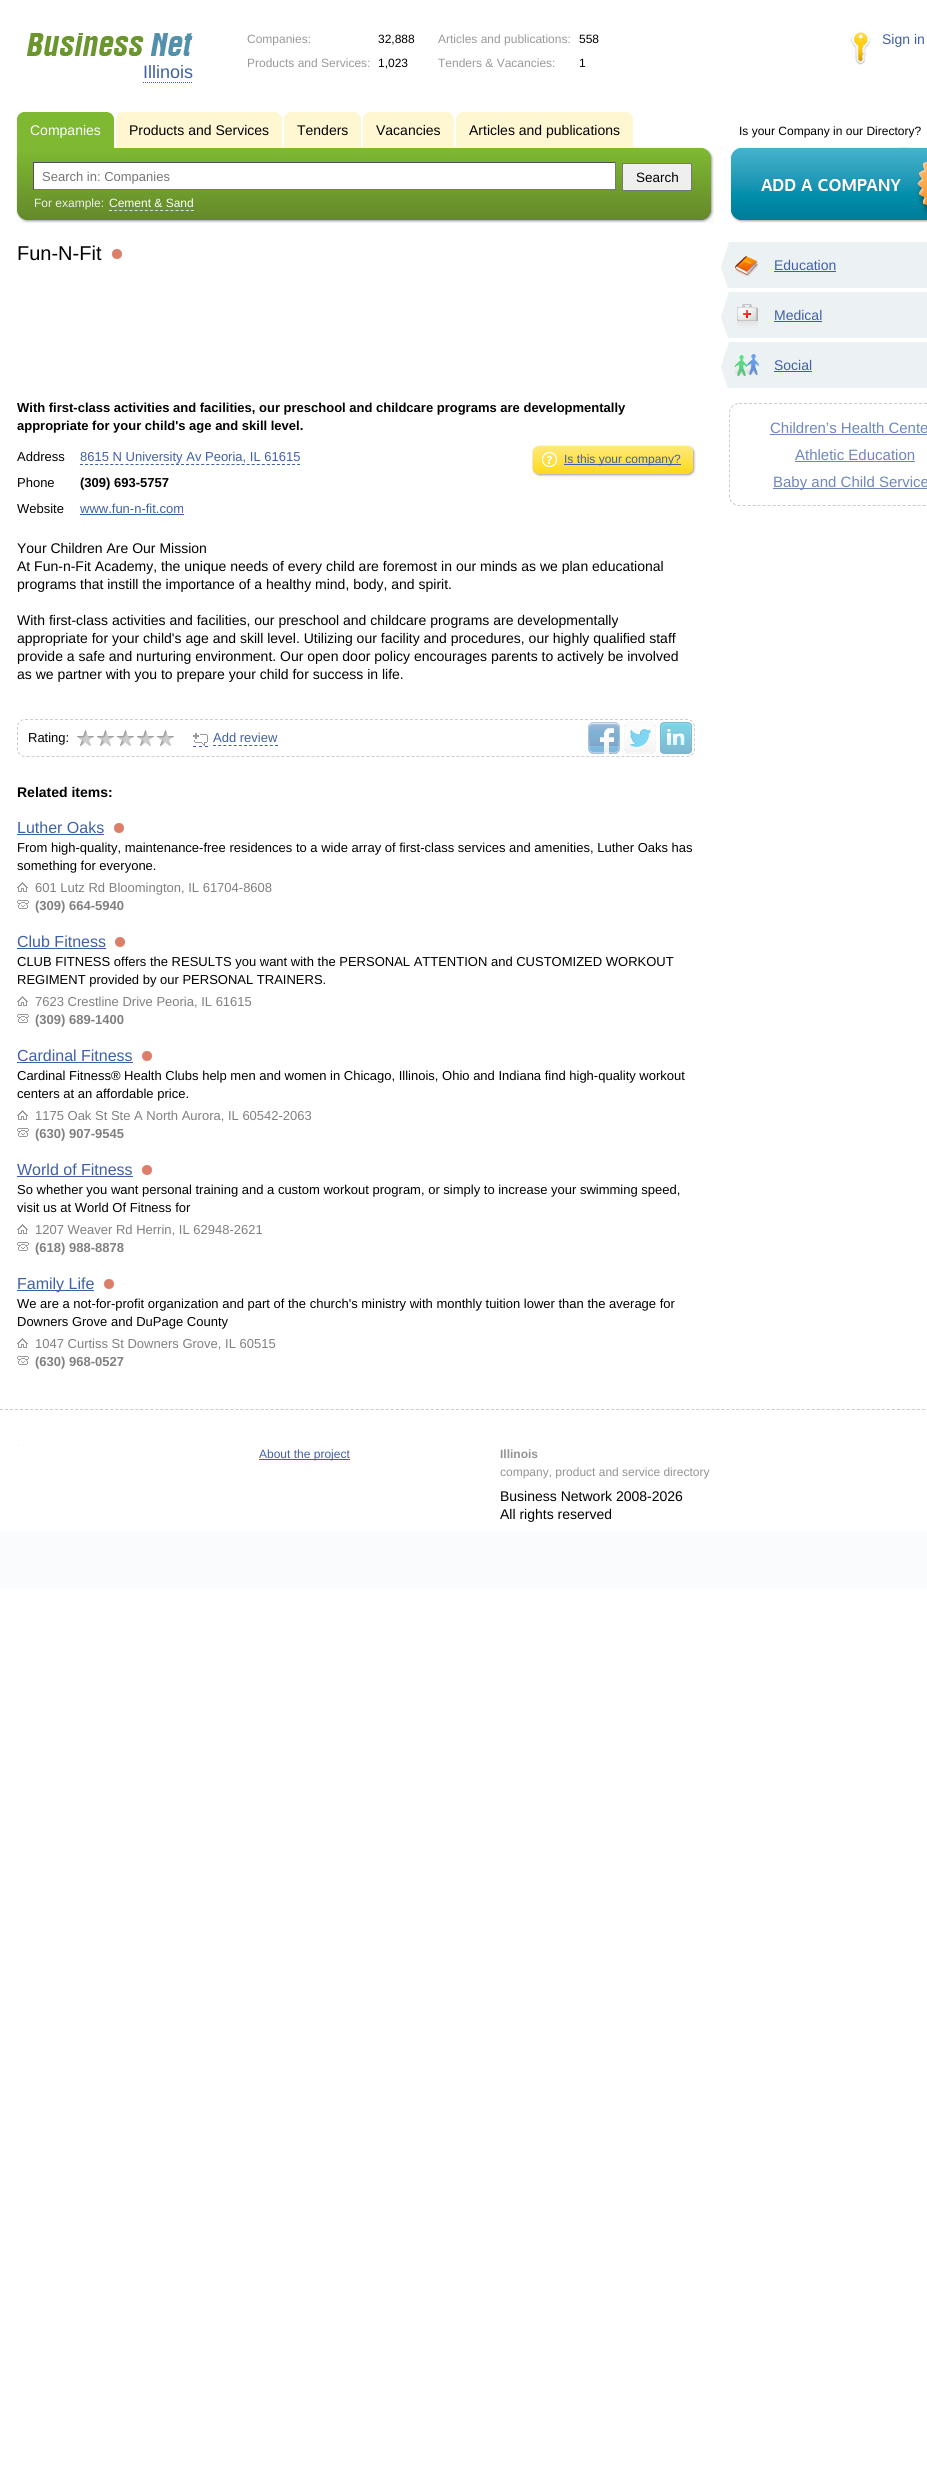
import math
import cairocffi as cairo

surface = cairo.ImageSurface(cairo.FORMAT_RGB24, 927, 2486)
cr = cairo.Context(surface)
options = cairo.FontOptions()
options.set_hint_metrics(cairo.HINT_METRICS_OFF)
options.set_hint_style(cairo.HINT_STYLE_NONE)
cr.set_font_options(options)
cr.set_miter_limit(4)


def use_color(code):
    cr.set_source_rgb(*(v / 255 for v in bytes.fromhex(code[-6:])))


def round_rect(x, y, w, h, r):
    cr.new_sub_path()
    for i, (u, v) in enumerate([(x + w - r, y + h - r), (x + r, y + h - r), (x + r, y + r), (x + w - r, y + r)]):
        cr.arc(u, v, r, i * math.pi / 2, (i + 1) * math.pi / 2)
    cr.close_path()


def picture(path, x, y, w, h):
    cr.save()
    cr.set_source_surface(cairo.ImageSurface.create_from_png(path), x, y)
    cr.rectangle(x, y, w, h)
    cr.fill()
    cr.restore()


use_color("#ffffff")
cr.paint()
cr.select_font_face("Liberation Sans")
cr.set_font_size(12)
use_color("#999999")
cr.move_to(247, 43)
cr.show_text("Companies:")
use_color("#000000")
cr.move_to(378, 43)
cr.show_text("32,888")
use_color("#999999")
cr.move_to(247, 67)
cr.show_text("Products and Services:")
use_color("#000000")
cr.move_to(378, 67)
cr.show_text("1,023")
use_color("#999999")
cr.move_to(438, 43)
cr.show_text("Articles and publications:")
use_color("#000000")
cr.move_to(579, 43)
cr.show_text("558")
use_color("#999999")
cr.move_to(438, 67)
cr.show_text("Tenders & Vacancies:")
use_color("#000000")
cr.move_to(579, 67)
cr.show_text("1")
picture("img1.png", 851, 30, 20, 35)
cr.set_font_size(14)
use_color("#3f5fa6")
cr.move_to(882, 44)
cr.show_text("Sign in")
cr.set_font_size(18)
cr.move_to(143, 78)
cr.show_text("Illinois")
picture("img2.png", 26, 33, 167, 32)
cr.new_path()
cr.move_to(143, 82.5)
cr.line_to(193, 82.5)
cr.set_line_width(1)
cr.set_dash([1, 1])
cr.stroke()
picture("img7.png", 17, 147, 685, 76)
use_color("#7eb931")
cr.rectangle(17, 112, 97, 36)
cr.fill()
picture("img3.png", 108, 112, 6, 6)
picture("img4.png", 17, 112, 6, 6)
cr.set_font_size(14)
use_color("#ffffff")
cr.move_to(30, 135)
cr.show_text("Companies")
use_color("#fff7d1")
cr.rectangle(116, 112, 166, 36)
cr.fill()
picture("img5.png", 276, 112, 6, 6)
picture("img6.png", 116, 112, 6, 6)
use_color("#000000")
cr.move_to(129, 135)
cr.show_text("Products and Services")
use_color("#fff7d1")
cr.rectangle(284, 112, 77, 36)
cr.fill()
picture("img5.png", 355, 112, 6, 6)
picture("img6.png", 284, 112, 6, 6)
use_color("#000000")
cr.move_to(297, 135)
cr.show_text("Tenders")
use_color("#fff7d1")
cr.rectangle(363, 112, 91, 36)
cr.fill()
picture("img5.png", 448, 112, 6, 6)
picture("img6.png", 363, 112, 6, 6)
use_color("#000000")
cr.move_to(376, 135)
cr.show_text("Vacancies")
use_color("#fff7d1")
cr.rectangle(456, 112, 177, 36)
cr.fill()
picture("img5.png", 627, 112, 6, 6)
picture("img6.png", 456, 112, 6, 6)
use_color("#000000")
cr.move_to(469, 135)
cr.show_text("Articles and publications")
picture("img8.png", 16, 156, 11, 67)
use_color("#ffffff")
cr.rectangle(34, 163, 581, 26)
cr.fill()
use_color("#4f4f4f")
cr.rectangle(33, 162, 583, 1)
cr.fill()
use_color("#767676")
cr.rectangle(615, 162, 1, 28)
cr.fill()
cr.rectangle(33, 189, 583, 1)
cr.fill()
use_color("#4f4f4f")
cr.rectangle(33, 162, 1, 28)
cr.fill()
cr.set_font_size(13)
use_color("#757575")
cr.move_to(42, 181)
cr.show_text("Search in: Companies")
use_color("#efefef")
round_rect(622.5, 163.5, 69, 27, 1.5)
cr.fill_preserve()
use_color("#767676")
cr.set_dash([])
cr.stroke()
cr.set_font_size(13.5)
use_color("#000000")
cr.move_to(636, 182)
cr.show_text("Search")
picture("img9.png", 702, 147, 12, 76)
cr.set_font_size(12)
use_color("#eeeeee")
cr.move_to(34, 207)
cr.show_text("For example:")
use_color("#ffffff")
cr.move_to(109, 207)
cr.show_text("Cement & Sand")
cr.new_path()
cr.move_to(109, 210.5)
cr.line_to(194, 210.5)
use_color("#dddddd")
cr.set_dash([3, 2.12])
cr.stroke()
use_color("#000000")
cr.move_to(739, 135)
cr.show_text("Is your Company in our Directory?")
picture("img10.png", 730, 147, 197, 76)
cr.set_font_size(20)
cr.move_to(17, 260)
cr.show_text("Fun-N-Fit")
use_color("#dd7e6b")
cr.new_path()
cr.arc(117, 254, 5, 0, 2 * math.pi)
cr.fill()
cr.select_font_face("Liberation Sans", cairo.FONT_SLANT_NORMAL, cairo.FONT_WEIGHT_BOLD)
cr.set_font_size(13)
use_color("#000000")
cr.move_to(17, 412)
cr.show_text("With first-class activities and facilities, our preschool and childcare programs are developmentally")
cr.move_to(17, 430)
cr.show_text("appropriate for your child's age and skill level.")
cr.select_font_face("Liberation Sans")
cr.move_to(17, 461)
cr.show_text("Address")
use_color("#3f5fa6")
cr.move_to(80, 461)
cr.show_text("8615 N University Av Peoria, IL 61615")
cr.new_path()
cr.move_to(80, 464.5)
cr.line_to(300, 464.5)
cr.set_dash([3, 2.05])
cr.stroke()
use_color("#000000")
cr.move_to(17, 487)
cr.show_text("Phone")
cr.select_font_face("Liberation Sans", cairo.FONT_SLANT_NORMAL, cairo.FONT_WEIGHT_BOLD)
cr.move_to(80, 487)
cr.show_text("(309) 693-5757")
cr.select_font_face("Liberation Sans")
cr.move_to(17, 513)
cr.show_text("Website")
use_color("#3f5fa6")
cr.move_to(80, 513)
cr.show_text("www.fun-n-fit.com")
cr.rectangle(80, 514, 104, 1)
cr.fill()
picture("img11.png", 539, 445, 149, 32)
picture("img12.png", 532, 445, 7, 32)
picture("img13.png", 542, 452, 15, 15)
cr.rectangle(564, 464, 117, 1)
cr.fill()
cr.set_font_size(12)
cr.move_to(564, 463)
cr.show_text("Is this your company?")
picture("img14.png", 688, 445, 8, 32)
cr.set_font_size(14)
use_color("#000000")
cr.move_to(17, 553)
cr.show_text("Your Children Are Our Mission")
cr.move_to(17, 571)
cr.show_text("At Fun-n-Fit Academy, the unique needs of every child are foremost in our minds as we plan educational")
cr.move_to(17, 589)
cr.show_text("programs that instill the importance of a healthy mind, body, and spirit.")
cr.move_to(17, 625)
cr.show_text("With first-class activities and facilities, our preschool and childcare programs are developmentally")
cr.move_to(17, 643)
cr.show_text("appropriate for your child's age and skill level. Utilizing our facility and procedures, our highly qualified staff")
cr.move_to(17, 661)
cr.show_text("provide a safe and nurturing environment. Our open door policy encourages parents to actively be involved")
cr.move_to(17, 679)
cr.show_text("as we partner with you to prepare your child for success in life.")
cr.new_path()
cr.move_to(25, 719.5)
cr.line_to(687, 719.5)
cr.curve_to(691, 719.5, 694.5, 723, 694.5, 727)
cr.line_to(694.5, 749)
cr.curve_to(694.5, 753, 691, 756.5, 687, 756.5)
cr.line_to(25, 756.5)
cr.curve_to(21, 756.5, 17.5, 753, 17.5, 749)
cr.line_to(17.5, 727)
cr.curve_to(17.5, 723, 21, 719.5, 25, 719.5)
cr.close_path()
use_color("#cdcdcd")
cr.set_dash([3, 2])
cr.stroke()
cr.set_font_size(13)
use_color("#000000")
cr.move_to(28, 742)
cr.show_text("Rating:")
picture("img15.png", 77, 730, 17, 16)
picture("img15.png", 97, 730, 17, 16)
picture("img15.png", 117, 730, 17, 16)
picture("img15.png", 137, 730, 17, 16)
picture("img15.png", 157, 730, 17, 16)
cr.new_path()
cr.move_to(193, 746.5)
cr.line_to(196, 746.5)
cr.move_to(199, 746.5)
cr.line_to(202, 746.5)
cr.move_to(205, 746.5)
cr.line_to(208, 746.5)
use_color("#3f5fa6")
cr.set_dash([])
cr.stroke()
cr.new_path()
cr.move_to(213, 745.5)
cr.line_to(278, 745.5)
cr.set_dash([3, 2.17])
cr.stroke()
picture("img16.png", 193, 733, 15, 13)
cr.move_to(213, 742)
cr.show_text("Add review")
picture("img17.png", 588, 722, 32, 32)
picture("img18.png", 624, 722, 32, 32)
picture("img19.png", 660, 722, 32, 32)
cr.select_font_face("Liberation Sans", cairo.FONT_SLANT_NORMAL, cairo.FONT_WEIGHT_BOLD)
cr.set_font_size(14)
use_color("#000000")
cr.move_to(17, 797)
cr.show_text("Related items:")
cr.select_font_face("Liberation Sans")
cr.set_font_size(16)
use_color("#3f5fa6")
cr.move_to(17, 833)
cr.show_text("Luther Oaks")
cr.rectangle(17, 834, 87, 1)
cr.fill()
use_color("#dd7e6b")
cr.arc(119, 828, 5, 0, 2 * math.pi)
cr.fill()
cr.set_font_size(13)
use_color("#000000")
cr.move_to(17, 852)
cr.show_text("From high-quality, maintenance-free residences to a wide array of first-class services and amenities, Luther Oaks has")
cr.move_to(17, 870)
cr.show_text("something for everyone.")
picture("img20.png", 17, 882, 11, 10)
use_color("#808080")
cr.move_to(35, 892)
cr.show_text("601 Lutz Rd Bloomington, IL 61704-8608")
picture("img21.png", 17, 900, 12, 9)
cr.select_font_face("Liberation Sans", cairo.FONT_SLANT_NORMAL, cairo.FONT_WEIGHT_BOLD)
cr.move_to(35, 910)
cr.show_text("(309) 664-5940")
cr.select_font_face("Liberation Sans")
cr.set_font_size(16)
use_color("#3f5fa6")
cr.move_to(17, 947)
cr.show_text("Club Fitness")
cr.rectangle(17, 948, 89, 1)
cr.fill()
use_color("#dd7e6b")
cr.arc(120, 942, 5, 0, 2 * math.pi)
cr.fill()
cr.set_font_size(13)
use_color("#000000")
cr.move_to(17, 966)
cr.show_text("CLUB FITNESS offers the RESULTS you want with the PERSONAL ATTENTION and CUSTOMIZED WORKOUT")
cr.move_to(17, 984)
cr.show_text("REGIMENT provided by our PERSONAL TRAINERS.")
picture("img20.png", 17, 996, 11, 10)
use_color("#808080")
cr.move_to(35, 1006)
cr.show_text("7623 Crestline Drive Peoria, IL 61615")
picture("img21.png", 17, 1014, 12, 9)
cr.select_font_face("Liberation Sans", cairo.FONT_SLANT_NORMAL, cairo.FONT_WEIGHT_BOLD)
cr.move_to(35, 1024)
cr.show_text("(309) 689-1400")
cr.select_font_face("Liberation Sans")
cr.set_font_size(16)
use_color("#3f5fa6")
cr.move_to(17, 1061)
cr.show_text("Cardinal Fitness")
cr.rectangle(17, 1062, 116, 1)
cr.fill()
use_color("#dd7e6b")
cr.arc(147, 1056, 5, 0, 2 * math.pi)
cr.fill()
cr.set_font_size(13)
use_color("#000000")
cr.move_to(17, 1080)
cr.show_text("Cardinal Fitness® Health Clubs help men and women in Chicago, Illinois, Ohio and Indiana find high-quality workout")
cr.move_to(17, 1098)
cr.show_text("centers at an affordable price.")
picture("img20.png", 17, 1110, 11, 10)
use_color("#808080")
cr.move_to(35, 1120)
cr.show_text("1175 Oak St Ste A North Aurora, IL 60542-2063")
picture("img21.png", 17, 1128, 12, 9)
cr.select_font_face("Liberation Sans", cairo.FONT_SLANT_NORMAL, cairo.FONT_WEIGHT_BOLD)
cr.move_to(35, 1138)
cr.show_text("(630) 907-9545")
cr.select_font_face("Liberation Sans")
cr.set_font_size(16)
use_color("#3f5fa6")
cr.move_to(17, 1175)
cr.show_text("World of Fitness")
cr.rectangle(17, 1176, 116, 1)
cr.fill()
use_color("#dd7e6b")
cr.arc(147, 1170, 5, 0, 2 * math.pi)
cr.fill()
cr.set_font_size(13)
use_color("#000000")
cr.move_to(17, 1194)
cr.show_text("So whether you want personal training and a custom workout program, or simply to increase your swimming speed,")
cr.move_to(17, 1212)
cr.show_text("visit us at World Of Fitness for")
picture("img20.png", 17, 1224, 11, 10)
use_color("#808080")
cr.move_to(35, 1234)
cr.show_text("1207 Weaver Rd Herrin, IL 62948-2621")
picture("img21.png", 17, 1242, 12, 9)
cr.select_font_face("Liberation Sans", cairo.FONT_SLANT_NORMAL, cairo.FONT_WEIGHT_BOLD)
cr.move_to(35, 1252)
cr.show_text("(618) 988-8878")
use_color("#3f5fa6")
cr.rectangle(17, 1290, 77, 1)
cr.fill()
cr.select_font_face("Liberation Sans")
cr.set_font_size(16)
cr.move_to(17, 1289)
cr.show_text("Family Life")
use_color("#dd7e6b")
cr.new_path()
cr.arc(109, 1284, 5, 0, 2 * math.pi)
cr.fill()
cr.set_font_size(13)
use_color("#000000")
cr.move_to(17, 1308)
cr.show_text("We are a not-for-profit organization and part of the church's ministry with monthly tuition lower than the average for")
cr.move_to(17, 1326)
cr.show_text("Downers Grove and DuPage County")
picture("img20.png", 17, 1338, 11, 10)
use_color("#808080")
cr.move_to(35, 1348)
cr.show_text("1047 Curtiss St Downers Grove, IL 60515")
picture("img21.png", 17, 1356, 12, 9)
cr.select_font_face("Liberation Sans", cairo.FONT_SLANT_NORMAL, cairo.FONT_WEIGHT_BOLD)
cr.move_to(35, 1366)
cr.show_text("(630) 968-0527")
use_color("#ecf2f4")
cr.rectangle(729, 242, 198, 46)
cr.fill()
picture("img22.png", 721, 242, 8, 46)
picture("img23.png", 735, 256, 24, 21)
cr.select_font_face("Liberation Sans")
cr.set_font_size(14)
use_color("#3f5fa6")
cr.move_to(774, 270)
cr.show_text("Education")
cr.rectangle(774, 271, 62, 1)
cr.fill()
use_color("#ecf2f4")
cr.rectangle(729, 292, 198, 46)
cr.fill()
picture("img22.png", 721, 292, 8, 46)
picture("img24.png", 737, 304, 21, 24)
use_color("#3f5fa6")
cr.move_to(774, 320)
cr.show_text("Medical")
cr.rectangle(774, 321, 48, 1)
cr.fill()
use_color("#ecf2f4")
cr.rectangle(729, 342, 198, 46)
cr.fill()
picture("img22.png", 721, 342, 8, 46)
picture("img25.png", 734, 353, 25, 23)
use_color("#3f5fa6")
cr.move_to(774, 370)
cr.show_text("Social")
cr.rectangle(774, 371, 38, 1)
cr.fill()
cr.new_path()
cr.move_to(739, 403.5)
cr.line_to(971, 403.5)
cr.curve_to(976, 403.5, 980.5, 408, 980.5, 413)
cr.line_to(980.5, 496)
cr.curve_to(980.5, 501, 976, 505.5, 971, 505.5)
cr.line_to(739, 505.5)
cr.curve_to(734, 505.5, 729.5, 501, 729.5, 496)
cr.line_to(729.5, 413)
cr.curve_to(729.5, 408, 734, 403.5, 739, 403.5)
cr.close_path()
use_color("#cccccc")
cr.set_dash([3, 2])
cr.stroke()
cr.set_font_size(15)
use_color("#6f87bc")
cr.move_to(770, 433)
cr.show_text("Children’s Health Cente")
cr.rectangle(770, 434, 157, 1)
cr.fill()
cr.move_to(795, 460)
cr.show_text("Athletic Education")
cr.rectangle(795, 461, 120, 1)
cr.fill()
cr.rectangle(773, 488, 154, 1)
cr.fill()
cr.move_to(773, 487)
cr.show_text("Baby and Child Service")
use_color("#f9fbfc")
cr.rectangle(0, 1531, 927, 58)
cr.fill()
cr.new_path()
cr.move_to(0, 1409.5)
cr.line_to(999, 1409.5)
use_color("#cccccc")
cr.set_dash([3, 2.01])
cr.stroke()
use_color("#e8e8e8")
cr.rectangle(18, 1445, 1, 1)
cr.fill()
use_color("#3f5fa6")
cr.rectangle(259, 1459, 91, 1)
cr.fill()
cr.set_font_size(12)
cr.move_to(259, 1458)
cr.show_text("About the project")
cr.select_font_face("Liberation Sans", cairo.FONT_SLANT_NORMAL, cairo.FONT_WEIGHT_BOLD)
use_color("#939393")
cr.move_to(500, 1458)
cr.show_text("Illinois")
cr.select_font_face("Liberation Sans")
cr.move_to(500, 1476)
cr.show_text("company, product and service directory")
cr.set_font_size(14)
use_color("#000000")
cr.move_to(500, 1501)
cr.show_text("Business Network 2008-2026")
cr.move_to(500, 1519)
cr.show_text("All rights reserved")
surface.write_to_png("result.png")
